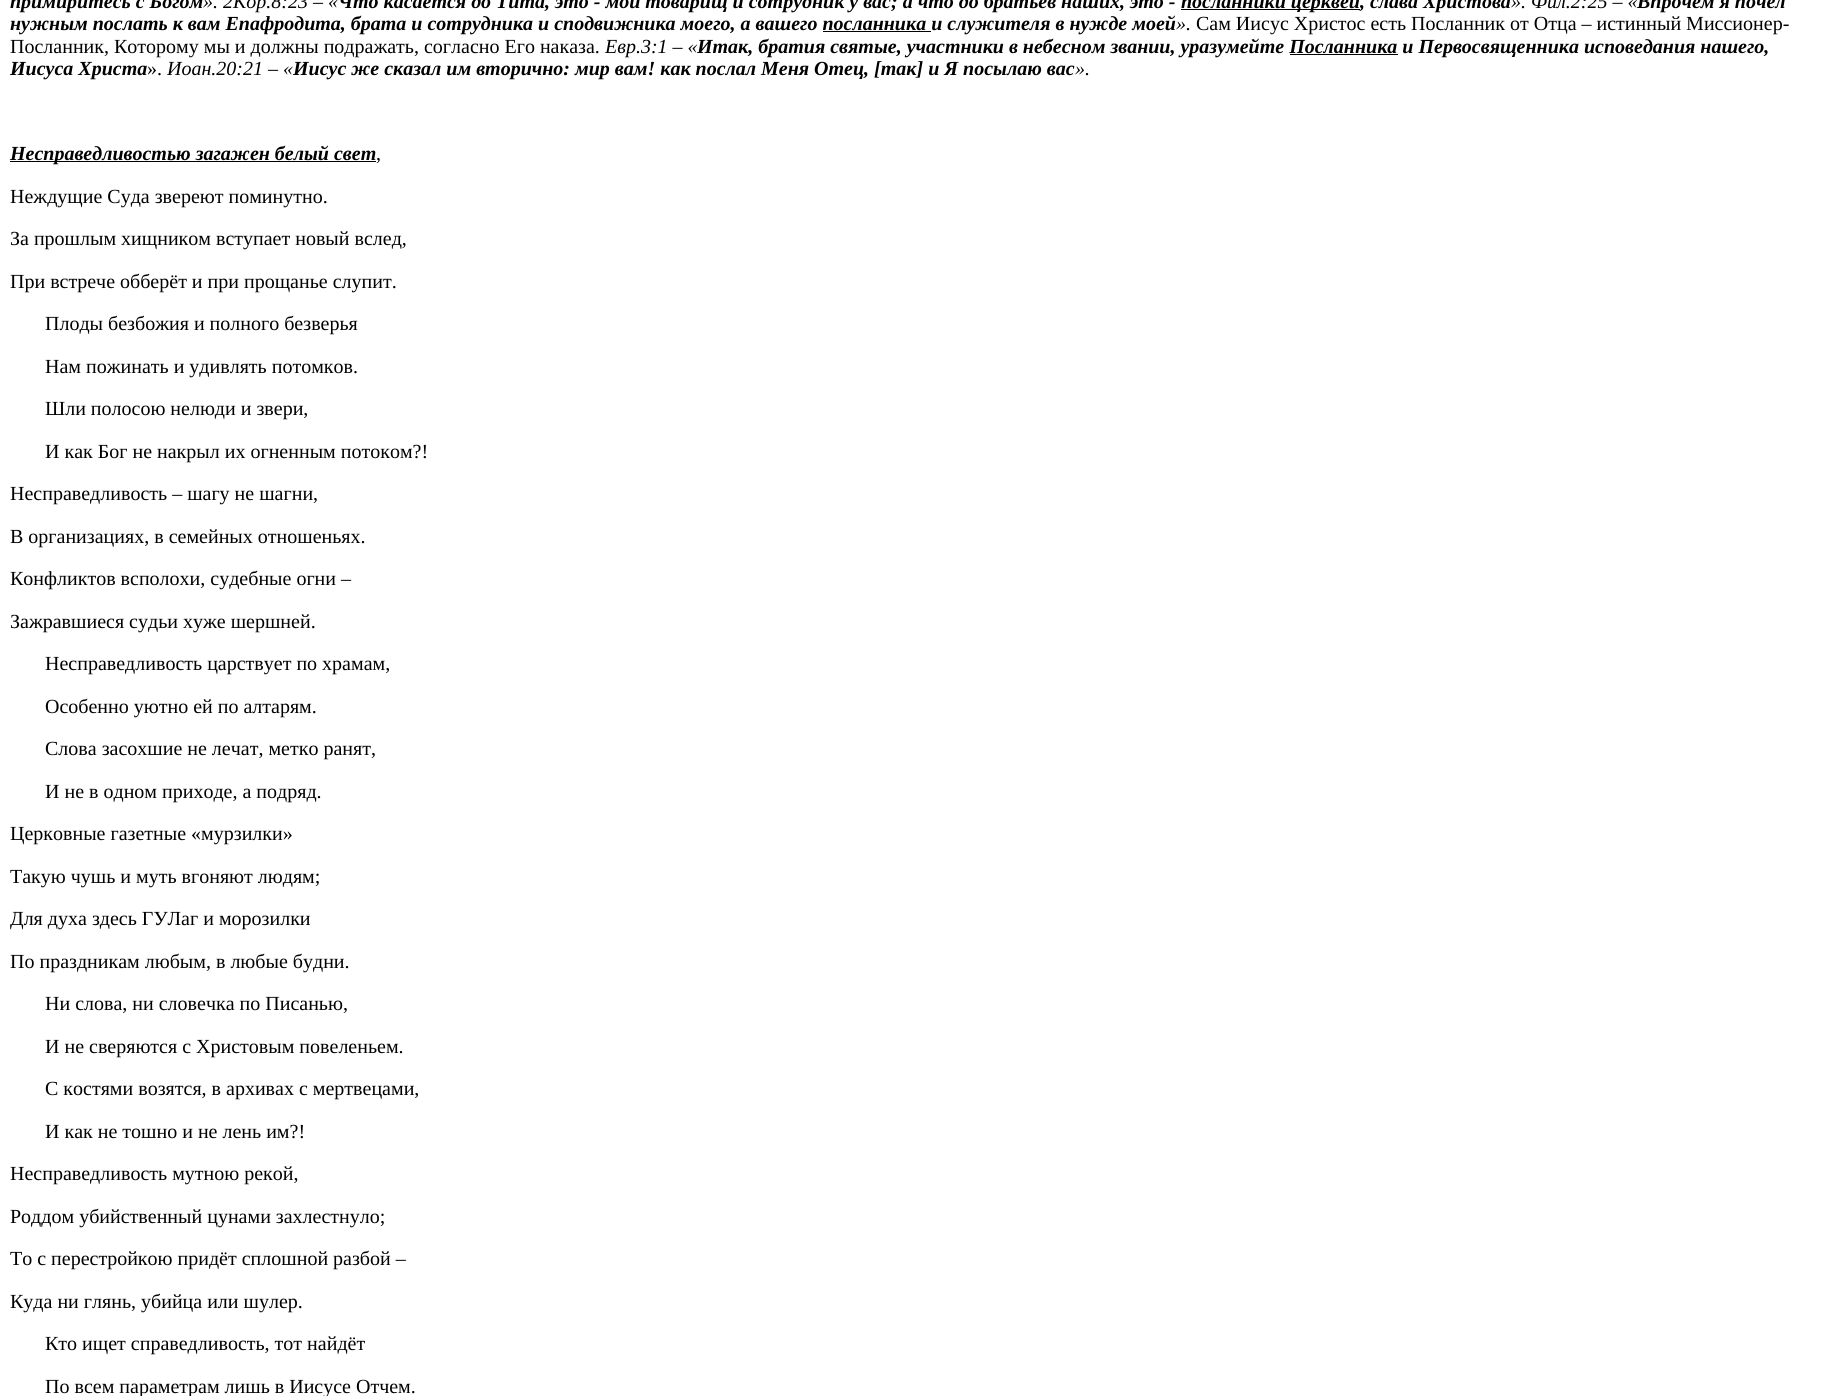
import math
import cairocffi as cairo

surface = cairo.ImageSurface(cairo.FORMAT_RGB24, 1825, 1396)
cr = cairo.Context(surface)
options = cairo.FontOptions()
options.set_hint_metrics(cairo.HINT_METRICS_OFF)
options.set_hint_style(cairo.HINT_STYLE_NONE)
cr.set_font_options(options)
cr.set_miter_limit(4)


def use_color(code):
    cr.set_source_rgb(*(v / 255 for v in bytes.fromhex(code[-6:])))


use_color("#ffffff")
cr.paint()
cr.select_font_face("Liberation Serif", cairo.FONT_SLANT_ITALIC, cairo.FONT_WEIGHT_BOLD)
cr.set_font_size(20)
use_color("#000000")
cr.move_to(10, 8)
cr.show_text("примиритесь с Богом")
cr.select_font_face("Liberation Serif", cairo.FONT_SLANT_ITALIC)
cr.move_to(203, 8)
cr.show_text("». 2Кор.8:23 – «")
cr.select_font_face("Liberation Serif", cairo.FONT_SLANT_ITALIC, cairo.FONT_WEIGHT_BOLD)
cr.move_to(338, 8)
cr.show_text("Что касается до Тита, это - мой товарищ и сотрудник у вас; а что до братьев наших, это -")
cr.rectangle(1181, 9, 179, 1)
cr.fill()
cr.move_to(1181, 8)
cr.show_text("посланники церквей, слава Христова")
cr.select_font_face("Liberation Serif", cairo.FONT_SLANT_ITALIC)
cr.move_to(1511, 8)
cr.show_text("». Фил.2:25 – «")
cr.select_font_face("Liberation Serif", cairo.FONT_SLANT_ITALIC, cairo.FONT_WEIGHT_BOLD)
cr.move_to(1637, 8)
cr.show_text("Впрочем я почёл")
cr.move_to(10, 30)
cr.show_text("нужным послать к вам Епафродита, брата и сотрудника и сподвижника моего, а вашего посланника и служителя в нужде моей")
cr.rectangle(823, 31, 108, 1)
cr.fill()
cr.select_font_face("Liberation Serif", cairo.FONT_SLANT_ITALIC)
cr.move_to(1176, 30)
cr.show_text("».")
cr.select_font_face("Liberation Serif")
cr.move_to(1196, 30)
cr.show_text("Сам Иисус Христос есть Посланник от Отца – истинный Миссионер-")
cr.move_to(10, 53)
cr.show_text("Посланник, Которому мы и должны подражать, согласно Его наказа.")
cr.select_font_face("Liberation Serif", cairo.FONT_SLANT_ITALIC)
cr.move_to(605, 53)
cr.show_text("Евр.3:1 – «")
cr.select_font_face("Liberation Serif", cairo.FONT_SLANT_ITALIC, cairo.FONT_WEIGHT_BOLD)
cr.move_to(697, 53)
cr.show_text("Итак, братия святые, участники в небесном звании, уразумейте Посланника и Первосвященника исповедания нашего,")
cr.rectangle(1290, 54, 108, 1)
cr.fill()
cr.move_to(10, 75)
cr.show_text("Иисуса Христа")
cr.select_font_face("Liberation Serif")
cr.move_to(147, 75)
cr.show_text("».")
cr.select_font_face("Liberation Serif", cairo.FONT_SLANT_ITALIC)
cr.move_to(167, 75)
cr.show_text("Иоан.20:21 – «")
cr.select_font_face("Liberation Serif", cairo.FONT_SLANT_ITALIC, cairo.FONT_WEIGHT_BOLD)
cr.move_to(293, 75)
cr.show_text("Иисус же сказал им вторично: мир вам! как послал Меня Отец, [так] и Я посылаю вас")
cr.select_font_face("Liberation Serif", cairo.FONT_SLANT_ITALIC)
cr.move_to(1075, 75)
cr.show_text("».")
cr.rectangle(10, 161, 366, 1)
cr.fill()
cr.select_font_face("Liberation Serif", cairo.FONT_SLANT_ITALIC, cairo.FONT_WEIGHT_BOLD)
cr.move_to(10, 160)
cr.show_text("Несправедливостью загажен белый свет")
cr.select_font_face("Liberation Serif")
cr.move_to(376, 160)
cr.show_text(",")
cr.move_to(10, 203)
cr.show_text("Неждущие Суда звереют поминутно.")
cr.move_to(10, 245)
cr.show_text("За прошлым хищником вступает новый вслед,")
cr.move_to(10, 288)
cr.show_text("При встрече обберёт и при прощанье слупит.")
cr.move_to(45, 330)
cr.show_text("Плоды безбожия и полного безверья")
cr.move_to(45, 373)
cr.show_text("Нам пожинать и удивлять потомков.")
cr.move_to(45, 415)
cr.show_text("Шли полосою нелюди и звери,")
cr.move_to(45, 458)
cr.show_text("И как Бог не накрыл их огненным потоком?!")
cr.move_to(10, 500)
cr.show_text("Несправедливость – шагу не шагни,")
cr.move_to(10, 543)
cr.show_text("В организациях, в семейных отношеньях.")
cr.move_to(10, 585)
cr.show_text("Конфликтов всполохи, судебные огни –")
cr.move_to(10, 628)
cr.show_text("Зажравшиеся судьи хуже шершней.")
cr.move_to(45, 670)
cr.show_text("Несправедливость царствует по храмам,")
cr.move_to(45, 713)
cr.show_text("Особенно уютно ей по алтарям.")
cr.move_to(45, 755)
cr.show_text("Слова засохшие не лечат, метко ранят,")
cr.move_to(45, 798)
cr.show_text("И не в одном приходе, а подряд.")
cr.move_to(10, 840)
cr.show_text("Церковные газетные «мурзилки»")
cr.move_to(10, 883)
cr.show_text("Такую чушь и муть вгоняют людям;")
cr.move_to(10, 925)
cr.show_text("Для духа здесь ГУЛаг и морозилки")
cr.move_to(10, 968)
cr.show_text("По праздникам любым, в любые будни.")
cr.move_to(45, 1010)
cr.show_text("Ни слова, ни словечка по Писанью,")
cr.move_to(45, 1053)
cr.show_text("И не сверяются с Христовым повеленьем.")
cr.move_to(45, 1095)
cr.show_text("С костями возятся, в архивах с мертвецами,")
cr.move_to(45, 1138)
cr.show_text("И как не тошно и не лень им?!")
cr.move_to(10, 1180)
cr.show_text("Несправедливость мутною рекой,")
cr.move_to(10, 1223)
cr.show_text("Роддом убийственный цунами захлестнуло;")
cr.move_to(10, 1265)
cr.show_text("То с перестройкою придёт сплошной разбой –")
cr.move_to(10, 1308)
cr.show_text("Куда ни глянь, убийца или шулер.")
cr.move_to(45, 1350)
cr.show_text("Кто ищет справедливость, тот найдёт")
cr.move_to(45, 1393)
cr.show_text("По всем параметрам лишь в Иисусе Отчем.")
surface.write_to_png("result.png")
